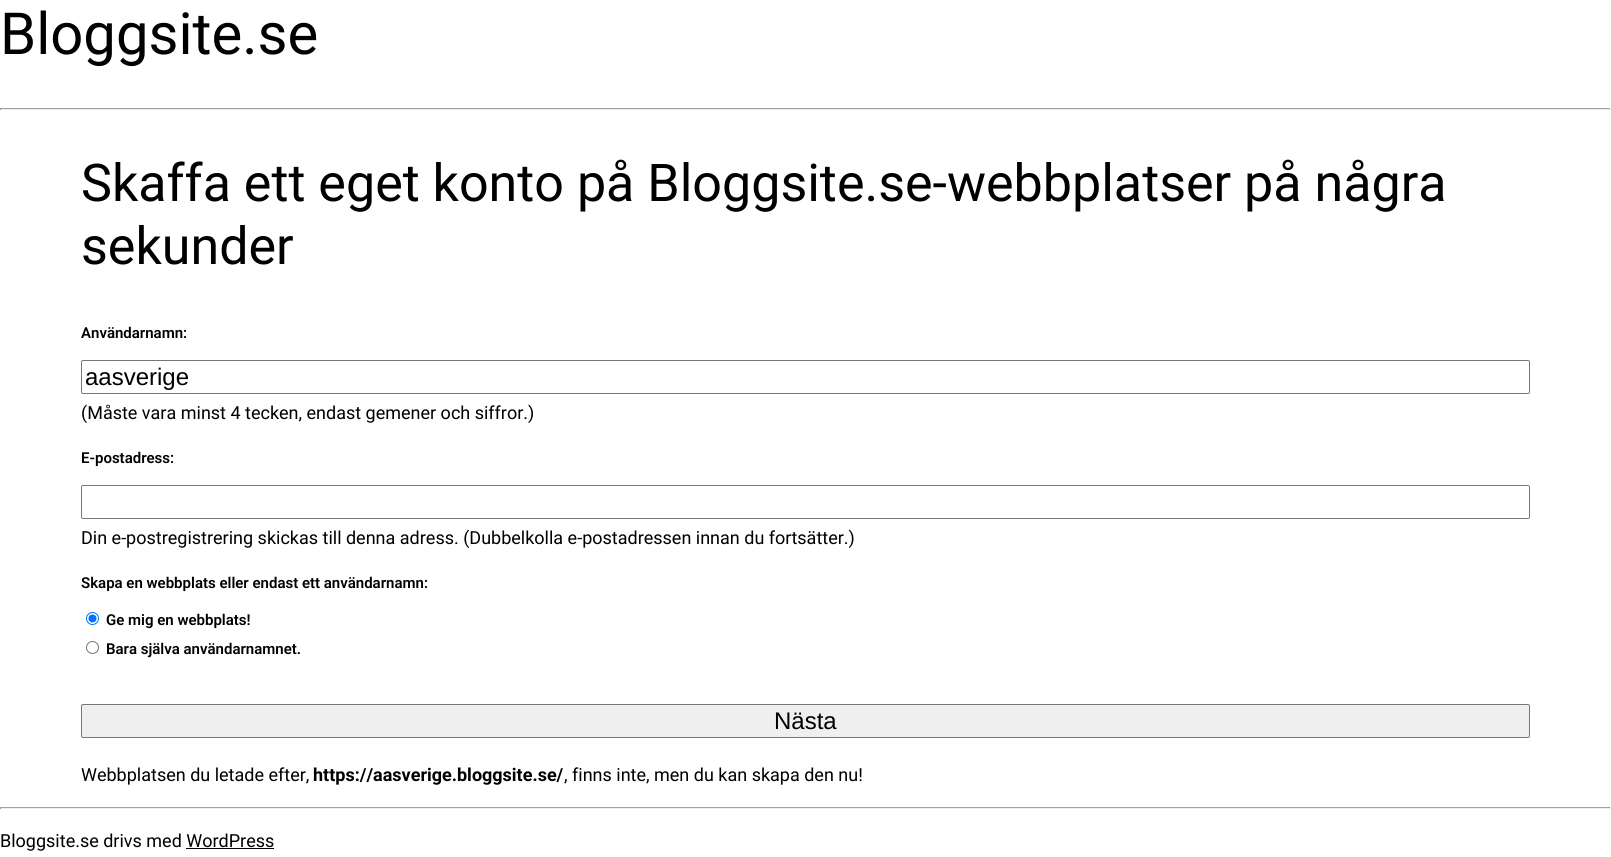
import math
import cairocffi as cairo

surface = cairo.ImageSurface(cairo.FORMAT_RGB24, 1611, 857)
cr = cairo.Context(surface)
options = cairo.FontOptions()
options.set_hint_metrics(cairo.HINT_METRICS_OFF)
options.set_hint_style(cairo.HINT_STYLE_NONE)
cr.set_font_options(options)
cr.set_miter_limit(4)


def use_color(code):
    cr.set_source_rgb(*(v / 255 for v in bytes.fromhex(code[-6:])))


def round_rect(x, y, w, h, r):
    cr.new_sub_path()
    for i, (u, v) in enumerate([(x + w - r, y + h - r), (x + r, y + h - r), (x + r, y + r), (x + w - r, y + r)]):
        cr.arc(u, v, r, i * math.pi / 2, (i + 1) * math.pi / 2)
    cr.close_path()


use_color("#ffffff")
cr.paint()
cr.select_font_face("Roboto")
cr.set_font_size(58)
use_color("#000000")
cr.move_to(0, 54)
cr.show_text("Bloggsite.se")
use_color("#9f9f9f")
cr.rectangle(0, 108, 1611, 1)
cr.fill()
use_color("#eeeeee")
cr.rectangle(1610, 108, 1, 2)
cr.fill()
cr.rectangle(0, 109, 1611, 1)
cr.fill()
use_color("#9f9f9f")
cr.rectangle(0, 108, 1, 2)
cr.fill()
cr.set_font_size(52)
use_color("#000000")
cr.move_to(81, 201)
cr.show_text("Skaffa ett eget konto på Bloggsite.se-webbplatser på några")
cr.move_to(81, 264)
cr.show_text("sekunder")
cr.select_font_face("Roboto SemiBold")
cr.set_font_size(15)
cr.move_to(81, 338)
cr.show_text("Användarnamn:")
round_rect(81.5, 360.5, 1448, 33, 1.5)
use_color("#767676")
cr.set_line_width(1)
cr.stroke()
cr.select_font_face("Liberation Sans")
cr.set_font_size(24)
use_color("#000000")
cr.move_to(85, 385)
cr.show_text("aasverige")
cr.select_font_face("Roboto")
cr.set_font_size(18)
cr.move_to(81, 419)
cr.show_text("(Måste vara minst 4 tecken, endast gemener och siffror.)")
cr.select_font_face("Roboto SemiBold")
cr.set_font_size(15)
cr.move_to(81, 463)
cr.show_text("E-postadress:")
round_rect(81.5, 485.5, 1448, 33, 1.5)
use_color("#767676")
cr.stroke()
cr.select_font_face("Roboto")
cr.set_font_size(18)
use_color("#000000")
cr.move_to(81, 544)
cr.show_text("Din e-postregistrering skickas till denna adress. (Dubbelkolla e-postadressen innan du fortsätter.)")
cr.select_font_face("Roboto SemiBold")
cr.set_font_size(15)
cr.move_to(81, 588)
cr.show_text("Skapa en webbplats eller endast ett användarnamn:")
cr.new_path()
cr.arc(92.5, 618.5, 6, 0, 2 * math.pi)
use_color("#0075ff")
cr.stroke()
cr.arc(92.5, 618.5, 4, 0, 2 * math.pi)
cr.fill()
use_color("#000000")
cr.move_to(106, 625)
cr.show_text("Ge mig en webbplats!")
cr.new_path()
cr.arc(92.5, 647.5, 6, 0, 2 * math.pi)
use_color("#767676")
cr.stroke()
use_color("#000000")
cr.move_to(106, 654)
cr.show_text("Bara själva användarnamnet.")
use_color("#efefef")
round_rect(81.5, 704.5, 1448, 33, 1.5)
cr.fill_preserve()
use_color("#767676")
cr.stroke()
cr.select_font_face("Liberation Sans")
cr.set_font_size(24)
use_color("#000000")
cr.move_to(774, 729)
cr.show_text("Nästa")
cr.select_font_face("Roboto")
cr.set_font_size(18)
cr.move_to(81, 781)
cr.show_text("Webbplatsen du letade efter,")
cr.select_font_face("Roboto", cairo.FONT_SLANT_NORMAL, cairo.FONT_WEIGHT_BOLD)
cr.move_to(313, 781)
cr.show_text("https://aasverige.bloggsite.se/")
cr.select_font_face("Roboto")
cr.move_to(564, 781)
cr.show_text(", finns inte, men du kan skapa den nu!")
use_color("#9f9f9f")
cr.rectangle(0, 807, 1611, 1)
cr.fill()
use_color("#eeeeee")
cr.rectangle(1610, 807, 1, 2)
cr.fill()
cr.rectangle(0, 808, 1611, 1)
cr.fill()
use_color("#9f9f9f")
cr.rectangle(0, 807, 1, 2)
cr.fill()
use_color("#000000")
cr.move_to(0, 847)
cr.show_text("Bloggsite.se drivs med WordPress")
cr.rectangle(186, 848, 88, 1)
cr.fill()
surface.write_to_png("result.png")
